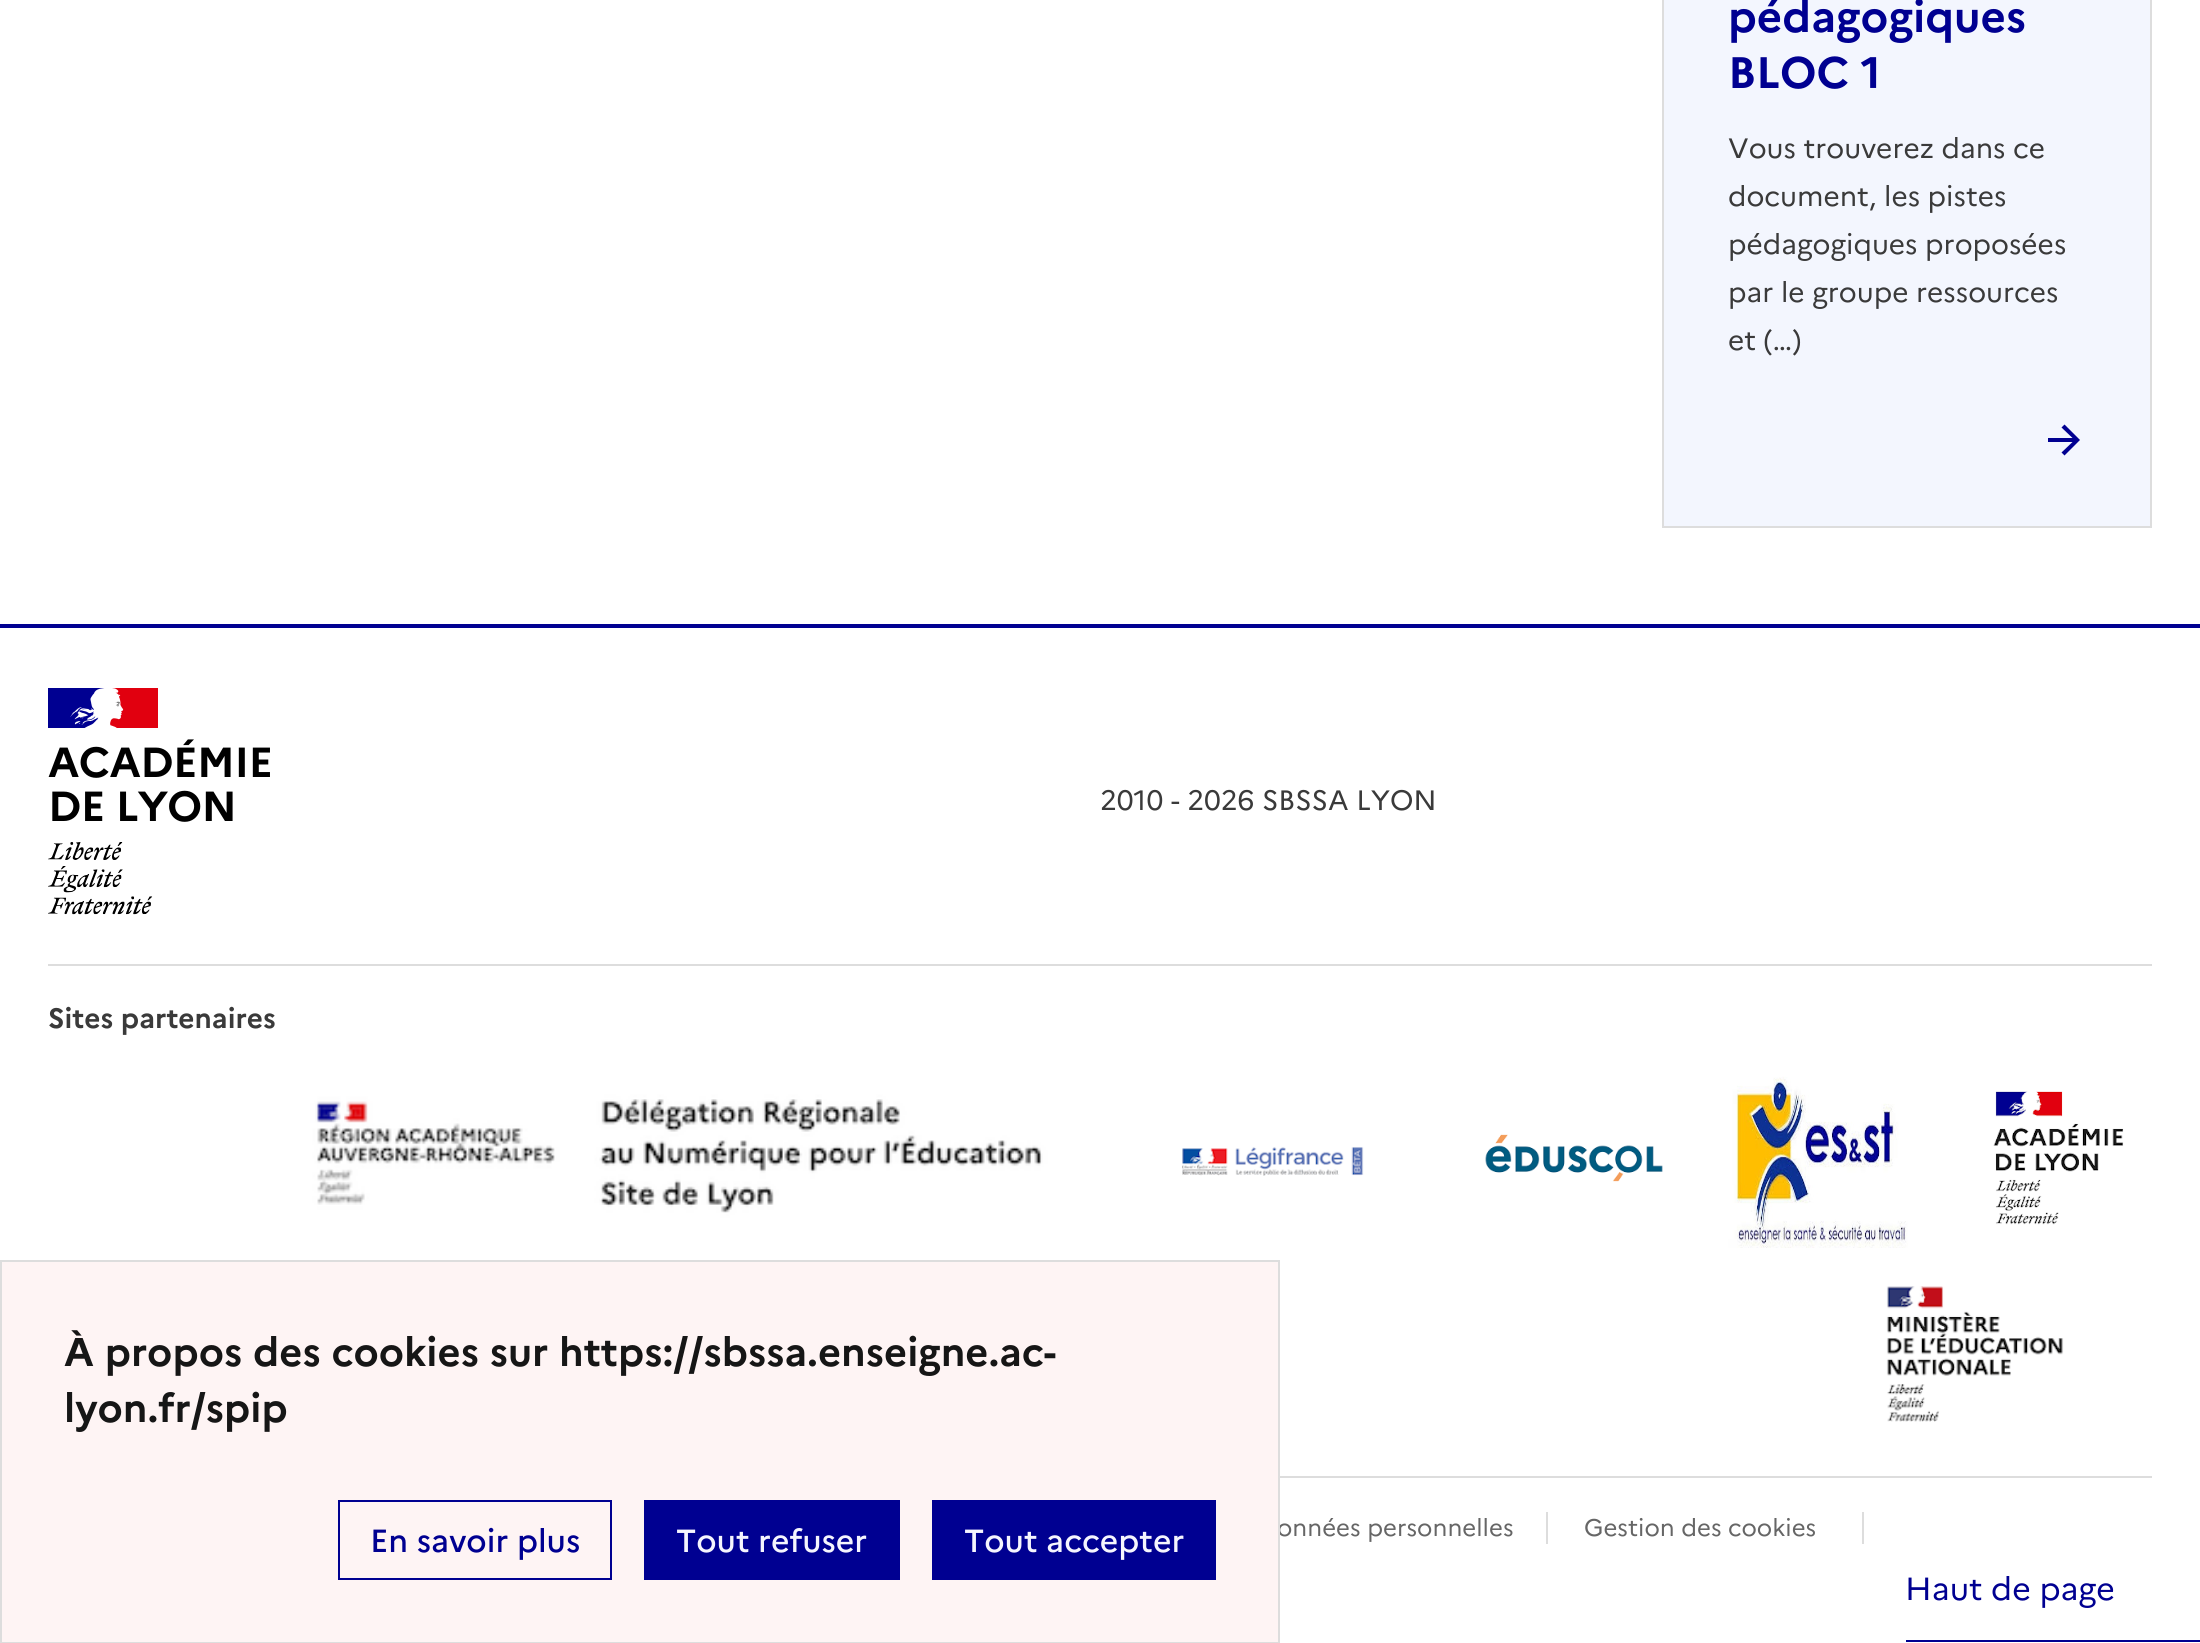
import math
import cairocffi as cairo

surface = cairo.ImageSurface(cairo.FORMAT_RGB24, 2200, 1643)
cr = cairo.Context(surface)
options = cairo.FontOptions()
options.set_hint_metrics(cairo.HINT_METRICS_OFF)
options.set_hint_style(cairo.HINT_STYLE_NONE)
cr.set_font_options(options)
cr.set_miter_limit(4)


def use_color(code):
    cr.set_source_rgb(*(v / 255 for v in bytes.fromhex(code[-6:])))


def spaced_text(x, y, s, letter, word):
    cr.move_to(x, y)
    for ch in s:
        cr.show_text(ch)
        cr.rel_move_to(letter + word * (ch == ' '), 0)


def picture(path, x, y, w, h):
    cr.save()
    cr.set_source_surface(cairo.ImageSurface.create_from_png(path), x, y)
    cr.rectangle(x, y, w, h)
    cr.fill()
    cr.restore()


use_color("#ffffff")
cr.paint()
use_color("#f3f6fe")
cr.rectangle(1664, 0, 486, 526)
cr.fill()
use_color("#dddddd")
cr.rectangle(2150, 0, 2, 528)
cr.fill()
cr.rectangle(1662, 0, 2, 528)
cr.fill()
cr.rectangle(1662, 526, 490, 2)
cr.fill()
cr.select_font_face("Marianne", cairo.FONT_SLANT_NORMAL, cairo.FONT_WEIGHT_BOLD)
cr.set_font_size(44)
use_color("#000091")
cr.move_to(1728, 32)
cr.show_text("pédagogiques")
cr.move_to(1728, 88)
cr.show_text("BLOC 1")
cr.new_path()
cr.move_to(2072.5, 438)
cr.line_to(2061.5, 427.5)
cr.line_to(2064.5, 424.5)
cr.line_to(2080, 440)
cr.line_to(2064.5, 455.5)
cr.line_to(2061.5, 452.5)
cr.line_to(2072.5, 442)
cr.line_to(2048, 442)
cr.line_to(2048, 438)
cr.close_path()
cr.fill()
cr.select_font_face("Marianne")
cr.set_font_size(28)
use_color("#3a3a3a")
cr.move_to(1728, 158)
cr.show_text("Vous trouverez dans ce")
cr.move_to(1728, 206)
cr.show_text("document, les pistes")
cr.move_to(1728, 254)
cr.show_text("pédagogiques proposées")
cr.move_to(1728, 302)
cr.show_text("par le groupe ressources")
cr.move_to(1728, 350)
cr.show_text("et (…)")
use_color("#000091")
cr.rectangle(0, 624, 2200, 4)
cr.fill()
cr.rectangle(48, 688, 56, 40)
cr.fill()
use_color("#e1000f")
cr.rectangle(104, 688, 54, 40)
cr.fill()
picture("img1.png", 70, 688, 54, 40)
cr.select_font_face("Marianne", cairo.FONT_SLANT_NORMAL, cairo.FONT_WEIGHT_BOLD)
cr.set_font_size(42)
use_color("#000000")
spaced_text(48, 777, "ACADÉMIE", -0.5, 0)
spaced_text(48, 821, "DE LYON", -0.5, 0)
picture("img2.png", 48, 842, 105, 73)
cr.select_font_face("Marianne")
cr.set_font_size(28)
use_color("#3a3a3a")
cr.move_to(1100, 810)
cr.show_text("2010 - 2026 SBSSA LYON")
use_color("#dddddd")
cr.rectangle(48, 964, 2104, 2)
cr.fill()
cr.select_font_face("Marianne", cairo.FONT_SLANT_NORMAL, cairo.FONT_WEIGHT_BOLD)
use_color("#3a3a3a")
cr.move_to(48, 1028)
cr.show_text("Sites partenaires")
picture("img3.png", 296, 1068, 778, 180)
picture("img4.png", 1138, 1068, 282, 180)
picture("img5.png", 1484, 1068, 180, 180)
picture("img6.png", 1728, 1068, 180, 180)
picture("img7.png", 1972, 1068, 180, 180)
picture("img8.png", 1798, 1264, 354, 180)
use_color("#dddddd")
cr.rectangle(1280, 1476, 872, 2)
cr.fill()
cr.select_font_face("Marianne")
cr.set_font_size(24)
use_color("#666666")
cr.move_to(1277, 1536)
cr.show_text("onnées personnelles")
use_color("#dddddd")
cr.rectangle(1546, 1512, 2, 32)
cr.fill()
use_color("#666666")
cr.move_to(1584, 1536)
cr.show_text("Gestion des cookies")
use_color("#dddddd")
cr.rectangle(1862, 1512, 2, 32)
cr.fill()
use_color("#fef4f4")
cr.rectangle(1, 1261, 1278, 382)
cr.fill_preserve()
use_color("#dddddd")
cr.stroke()
cr.select_font_face("Marianne", cairo.FONT_SLANT_NORMAL, cairo.FONT_WEIGHT_BOLD)
cr.set_font_size(40)
use_color("#161616")
cr.move_to(64, 1366)
cr.show_text("À propos des cookies sur https://sbssa.enseigne.ac-")
cr.move_to(64, 1422)
cr.show_text("lyon.fr/spip")
cr.rectangle(339, 1501, 272, 78)
use_color("#000091")
cr.stroke()
cr.select_font_face("Marianne Medium")
cr.set_font_size(32)
cr.move_to(370, 1552)
cr.show_text("En savoir plus")
cr.rectangle(644, 1500, 256, 80)
cr.fill()
use_color("#f5f5fe")
cr.move_to(676, 1552)
cr.show_text("Tout refuser")
use_color("#000091")
cr.rectangle(932, 1500, 284, 80)
cr.fill()
use_color("#f5f5fe")
cr.move_to(964, 1552)
cr.show_text("Tout accepter")
use_color("#000091")
cr.rectangle(1906, 1640, 294, 2)
cr.fill()
cr.select_font_face("Marianne")
cr.move_to(1905, 1600)
cr.show_text("Haut de page")
surface.write_to_png("result.png")
